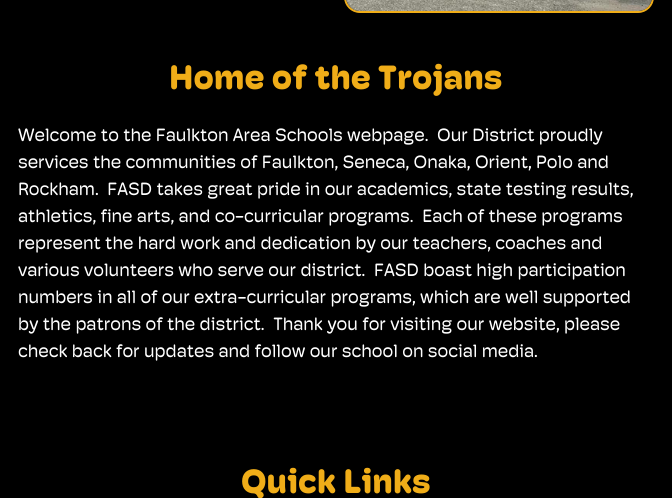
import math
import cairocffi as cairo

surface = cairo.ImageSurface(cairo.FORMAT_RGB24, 672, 498)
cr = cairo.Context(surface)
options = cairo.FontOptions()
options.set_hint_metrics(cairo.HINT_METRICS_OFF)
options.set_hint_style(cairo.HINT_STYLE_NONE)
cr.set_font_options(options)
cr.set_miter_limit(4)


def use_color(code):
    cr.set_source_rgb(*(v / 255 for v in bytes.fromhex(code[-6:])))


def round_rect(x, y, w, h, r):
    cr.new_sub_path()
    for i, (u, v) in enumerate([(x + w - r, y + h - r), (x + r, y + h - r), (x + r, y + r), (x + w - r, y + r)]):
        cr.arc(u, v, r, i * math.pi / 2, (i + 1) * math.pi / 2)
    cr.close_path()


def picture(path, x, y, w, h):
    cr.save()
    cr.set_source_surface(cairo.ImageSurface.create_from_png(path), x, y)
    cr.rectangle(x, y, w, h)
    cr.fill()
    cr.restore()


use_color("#000000")
cr.paint()
round_rect(345, -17, 308, 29, 15)
use_color("#f0ad18")
cr.stroke()
picture("img1.png", 346, 0, 306, 11)
cr.select_font_face("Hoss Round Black")
cr.set_font_size(34)
cr.move_to(169, 89)
cr.show_text("Home of the Trojans")
cr.select_font_face("Hoss Round")
cr.set_font_size(18)
use_color("#ffffff")
cr.move_to(18, 141)
cr.show_text("Welcome to the Faulkton Area Schools webpage.  Our District proudly")
cr.move_to(18, 168)
cr.show_text("services the communities of Faulkton, Seneca, Onaka, Orient, Polo and")
cr.move_to(18, 195)
cr.show_text("Rockham.  FASD takes great pride in our academics, state testing results,")
cr.move_to(18, 222)
cr.show_text("athletics, fine arts, and co-curricular programs.  Each of these programs")
cr.move_to(18, 249)
cr.show_text("represent the hard work and dedication by our teachers, coaches and")
cr.move_to(18, 276)
cr.show_text("various volunteers who serve our district.  FASD boast high participation")
cr.move_to(18, 303)
cr.show_text("numbers in all of our extra-curricular programs, which are well supported")
cr.move_to(18, 330)
cr.show_text("by the patrons of the district.  Thank you for visiting our website, please")
cr.move_to(18, 357)
cr.show_text("check back for updates and follow our school on social media.")
cr.select_font_face("Hoss Round Black")
cr.set_font_size(34)
use_color("#f0ad18")
cr.move_to(241, 493)
cr.show_text("Quick Links")
surface.write_to_png("result.png")
